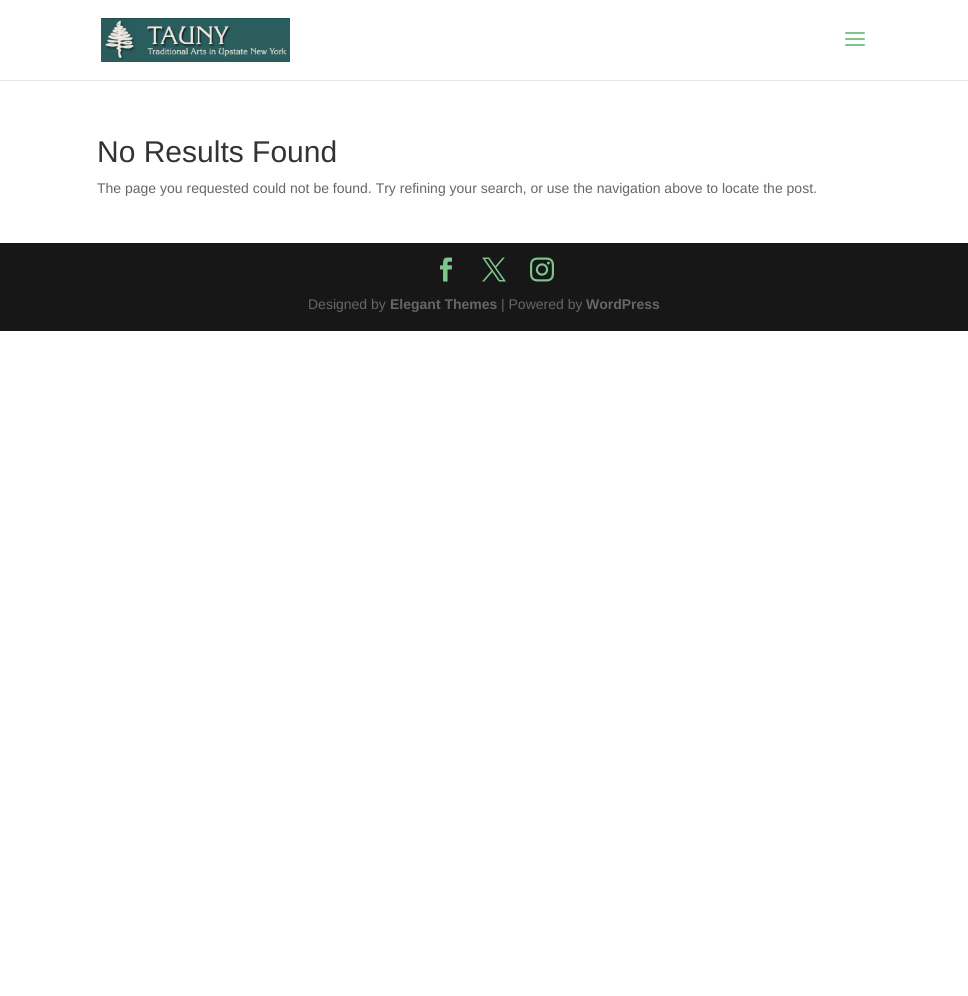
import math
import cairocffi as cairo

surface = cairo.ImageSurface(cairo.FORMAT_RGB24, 968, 996)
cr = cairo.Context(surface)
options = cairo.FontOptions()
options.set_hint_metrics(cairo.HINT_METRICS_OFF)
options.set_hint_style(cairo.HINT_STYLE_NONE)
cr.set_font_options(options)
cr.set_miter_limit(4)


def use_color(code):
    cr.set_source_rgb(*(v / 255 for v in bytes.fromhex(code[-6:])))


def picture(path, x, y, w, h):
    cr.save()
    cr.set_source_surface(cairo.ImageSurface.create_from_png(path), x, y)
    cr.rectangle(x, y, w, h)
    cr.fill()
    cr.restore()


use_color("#ffffff")
cr.paint()
use_color("#e6e6e6")
cr.rectangle(0, 80, 968, 1)
cr.fill()
picture("img1.png", 101, 18, 189, 44)
picture("img2.png", 845, 32, 20, 14)
cr.select_font_face("Liberation Sans")
cr.set_font_size(30)
use_color("#333333")
cr.move_to(97, 162)
cr.show_text("No Results Found")
cr.set_font_size(14)
use_color("#666666")
cr.move_to(97, 193)
cr.show_text("The page you requested could not be found. Try refining your search, or use the navigation above to locate the post.")
use_color("#171717")
cr.rectangle(0, 243, 968, 88)
cr.fill()
picture("img3.png", 440, 257, 13, 25)
picture("img4.png", 482, 257, 24, 25)
picture("img5.png", 530, 257, 24, 25)
use_color("#666666")
cr.move_to(308, 309)
cr.show_text("Designed by")
cr.select_font_face("Liberation Sans", cairo.FONT_SLANT_NORMAL, cairo.FONT_WEIGHT_BOLD)
cr.move_to(390, 309)
cr.show_text("Elegant Themes")
cr.select_font_face("Liberation Sans")
cr.move_to(501, 309)
cr.show_text("| Powered by")
cr.select_font_face("Liberation Sans", cairo.FONT_SLANT_NORMAL, cairo.FONT_WEIGHT_BOLD)
cr.move_to(586, 309)
cr.show_text("WordPress")
surface.write_to_png("result.png")
